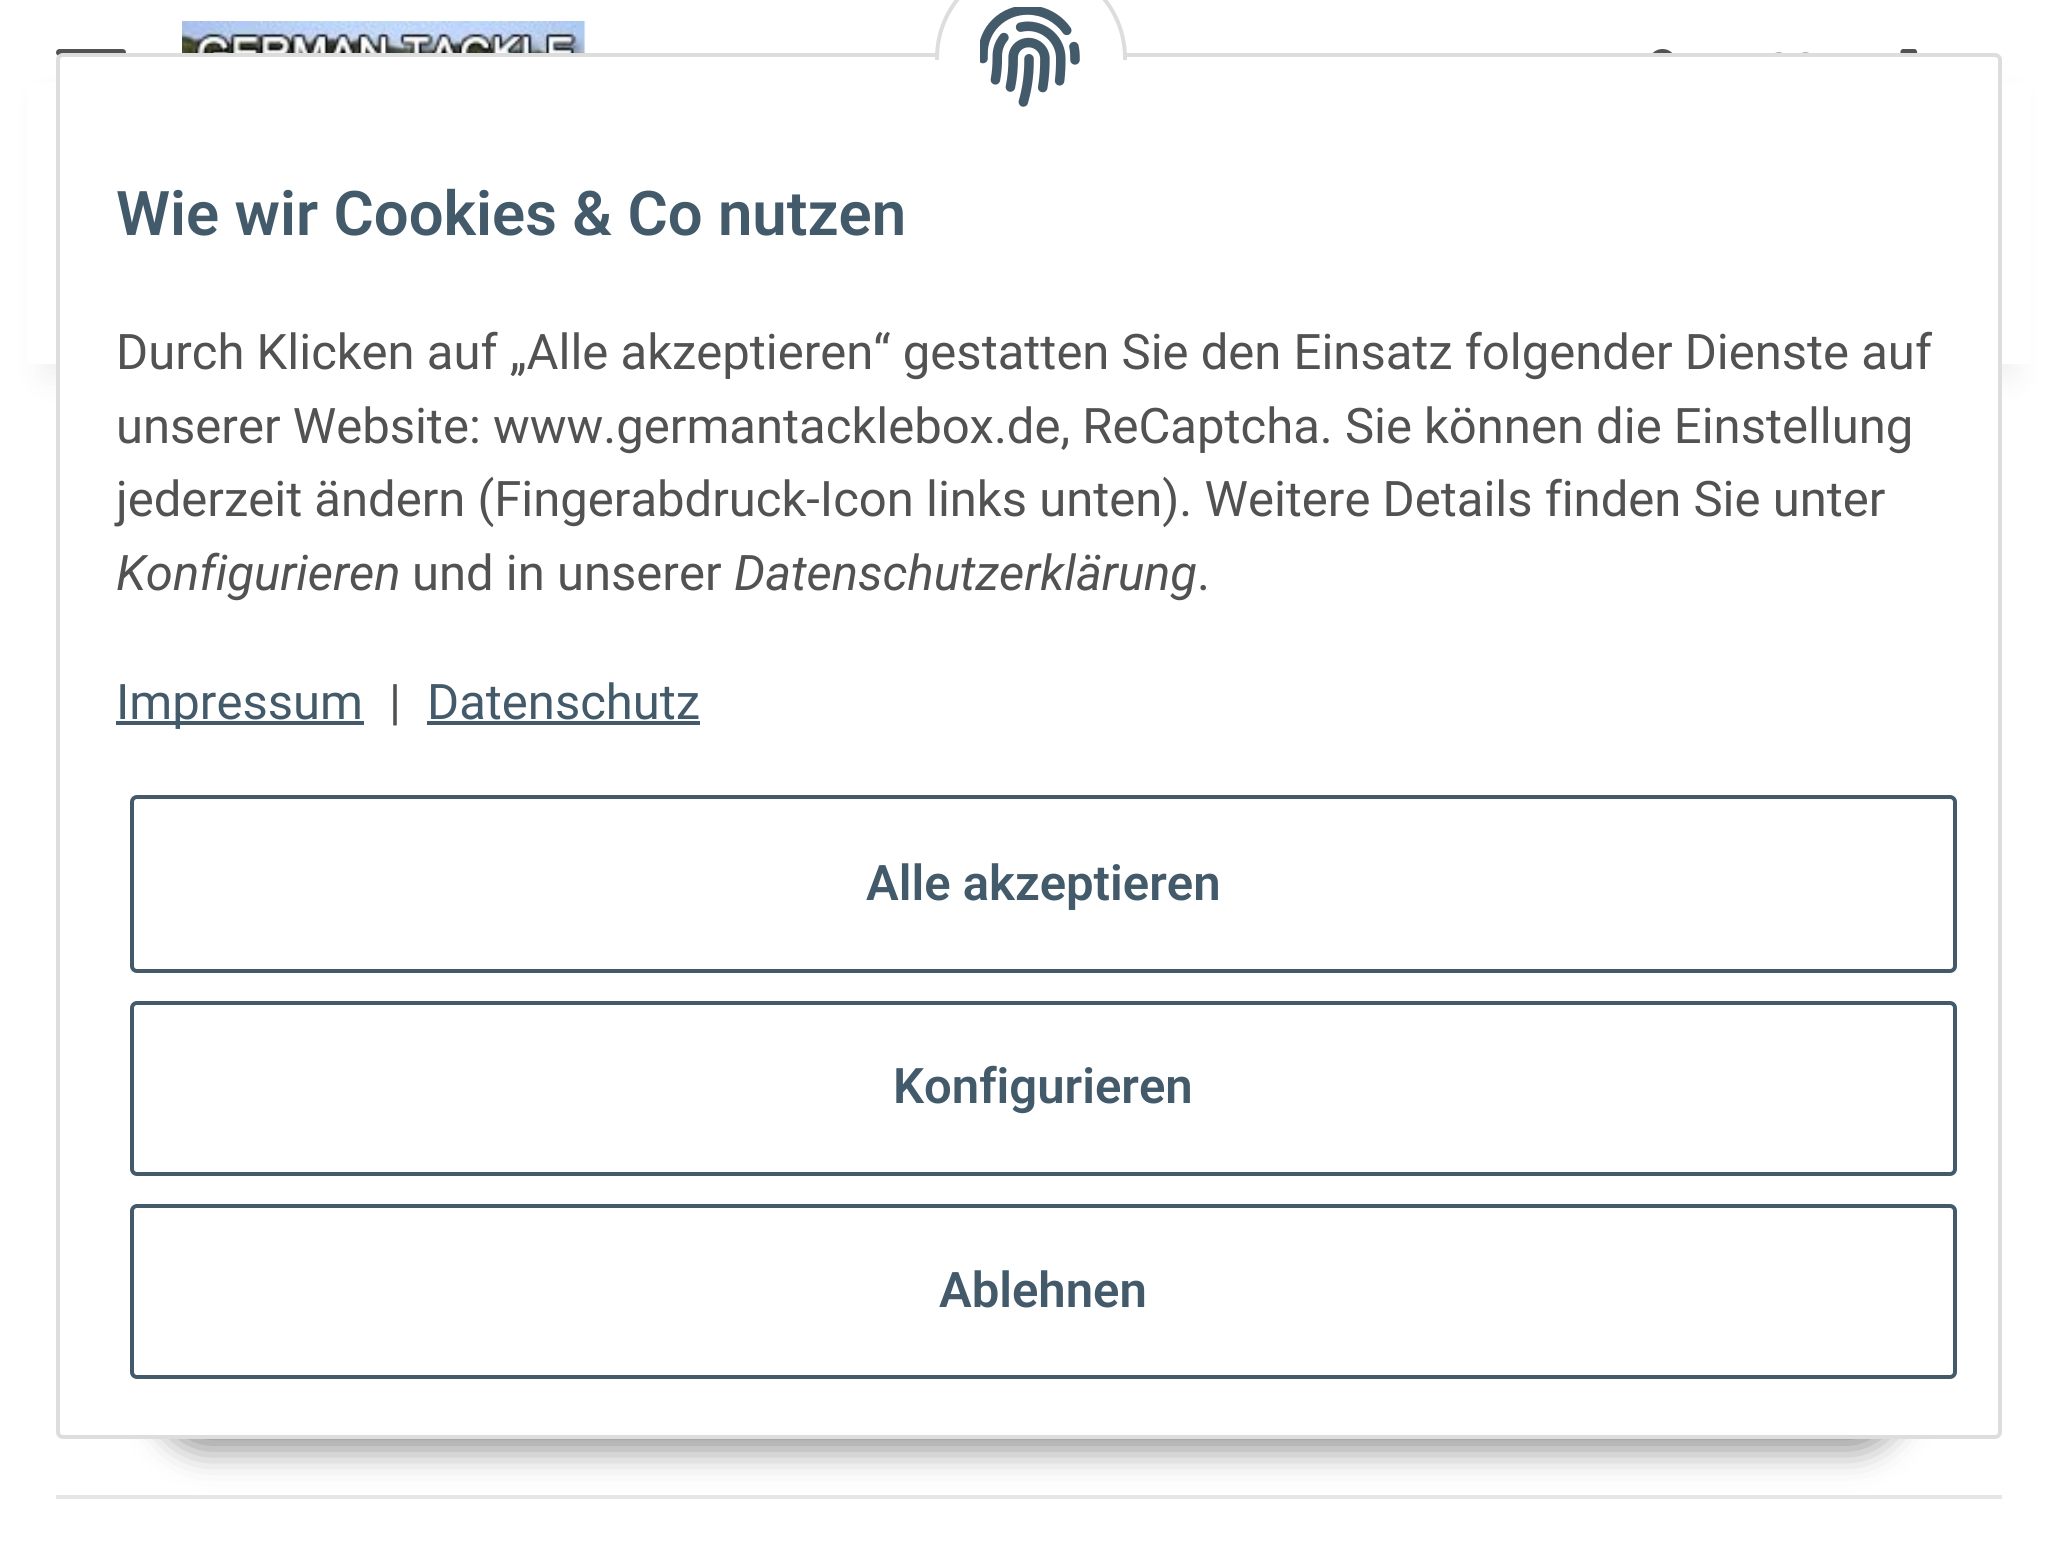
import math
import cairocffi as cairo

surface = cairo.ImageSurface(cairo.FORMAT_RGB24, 2055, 1549)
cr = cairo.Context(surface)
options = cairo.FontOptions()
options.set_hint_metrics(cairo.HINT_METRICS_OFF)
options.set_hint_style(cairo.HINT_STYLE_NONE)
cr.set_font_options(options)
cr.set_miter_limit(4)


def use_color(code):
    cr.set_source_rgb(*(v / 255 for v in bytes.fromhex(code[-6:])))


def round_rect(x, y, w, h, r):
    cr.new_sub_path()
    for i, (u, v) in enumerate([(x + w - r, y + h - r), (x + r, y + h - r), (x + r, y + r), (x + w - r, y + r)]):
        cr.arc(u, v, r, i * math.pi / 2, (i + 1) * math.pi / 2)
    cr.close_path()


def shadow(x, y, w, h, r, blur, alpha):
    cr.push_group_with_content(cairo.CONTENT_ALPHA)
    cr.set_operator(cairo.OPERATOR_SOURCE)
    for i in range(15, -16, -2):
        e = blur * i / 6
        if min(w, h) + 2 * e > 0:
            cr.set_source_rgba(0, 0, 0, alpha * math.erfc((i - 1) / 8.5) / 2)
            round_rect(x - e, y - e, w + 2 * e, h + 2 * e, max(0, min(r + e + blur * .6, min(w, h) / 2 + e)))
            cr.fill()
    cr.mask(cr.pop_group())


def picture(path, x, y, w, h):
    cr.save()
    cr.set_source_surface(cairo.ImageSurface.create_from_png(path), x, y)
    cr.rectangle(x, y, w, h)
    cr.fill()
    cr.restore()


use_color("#ffffff")
cr.paint()
use_color("#000000")
shadow(42, 98, 1974, 280, 0, 16, 0.06)
use_color("#ffffff")
cr.rectangle(27, 83, 2004, 281)
cr.fill()
use_color("#525252")
round_rect(56, 49, 70, 7, 3.5)
cr.fill()
picture("img1.png", 182, 21, 404, 32)
picture("img2.png", 1652, 49, 21, 4)
picture("img3.png", 1775, 52, 34, 1)
picture("img4.png", 1900, 49, 18, 4)
use_color("#e6e6e6")
cr.rectangle(56, 1495, 1946, 4)
cr.fill()
use_color("#000000")
shadow(158, 1337, 1743, 112, 56, 17.5, 0.45)
use_color("#ffffff")
round_rect(58, 55, 1942, 1382, 5)
cr.fill_preserve()
use_color("#dddddd")
cr.set_line_width(4)
cr.stroke()
use_color("#ffffff")
cr.arc(1031, 58, 94, 0, 2 * math.pi)
cr.fill_preserve()
use_color("#dddddd")
cr.stroke()
use_color("#ffffff")
cr.rectangle(935, 60, 192, 94)
cr.fill()
picture("img5.png", 980, 7, 100, 100)
cr.select_font_face("Roboto SemiBold")
cr.set_font_size(61.6)
use_color("#435a6b")
cr.move_to(116, 235)
cr.show_text("Wie wir Cookies & Co nutzen")
cr.select_font_face("Roboto")
cr.set_font_size(49)
use_color("#525252")
cr.move_to(116, 369)
cr.show_text("Durch Klicken auf „Alle akzeptieren“ gestatten Sie den Einsatz folgender Dienste auf")
cr.move_to(116, 443)
cr.show_text("unserer Website: www.germantacklebox.de, ReCaptcha. Sie können die Einstellung")
cr.move_to(116, 516)
cr.show_text("jederzeit ändern (Fingerabdruck-Icon links unten). Weitere Details finden Sie unter")
cr.select_font_face("Roboto", cairo.FONT_SLANT_ITALIC)
cr.move_to(116, 590)
cr.show_text("Konfigurieren")
cr.select_font_face("Roboto")
cr.move_to(412, 590)
cr.show_text("und in unserer")
cr.select_font_face("Roboto", cairo.FONT_SLANT_ITALIC)
cr.move_to(734, 590)
cr.show_text("Datenschutzerklärung")
cr.select_font_face("Roboto")
cr.move_to(1197, 590)
cr.show_text(".")
use_color("#435a6b")
cr.rectangle(116, 721, 248, 4)
cr.fill()
cr.move_to(116, 719)
cr.show_text("Impressum")
use_color("#525252")
cr.move_to(389, 719)
cr.show_text("|")
use_color("#435a6b")
cr.move_to(427, 719)
cr.show_text("Datenschutz")
cr.rectangle(427, 721, 273, 4)
cr.fill()
round_rect(132, 797, 1823, 174, 5)
cr.stroke()
cr.select_font_face("Roboto SemiBold")
cr.move_to(866, 900)
cr.show_text("Alle akzeptieren")
round_rect(132, 1003, 1823, 171, 5)
cr.stroke()
cr.move_to(893, 1103)
cr.show_text("Konfigurieren")
round_rect(132, 1206, 1823, 171, 5)
cr.stroke()
cr.move_to(939, 1307)
cr.show_text("Ablehnen")
surface.write_to_png("result.png")
